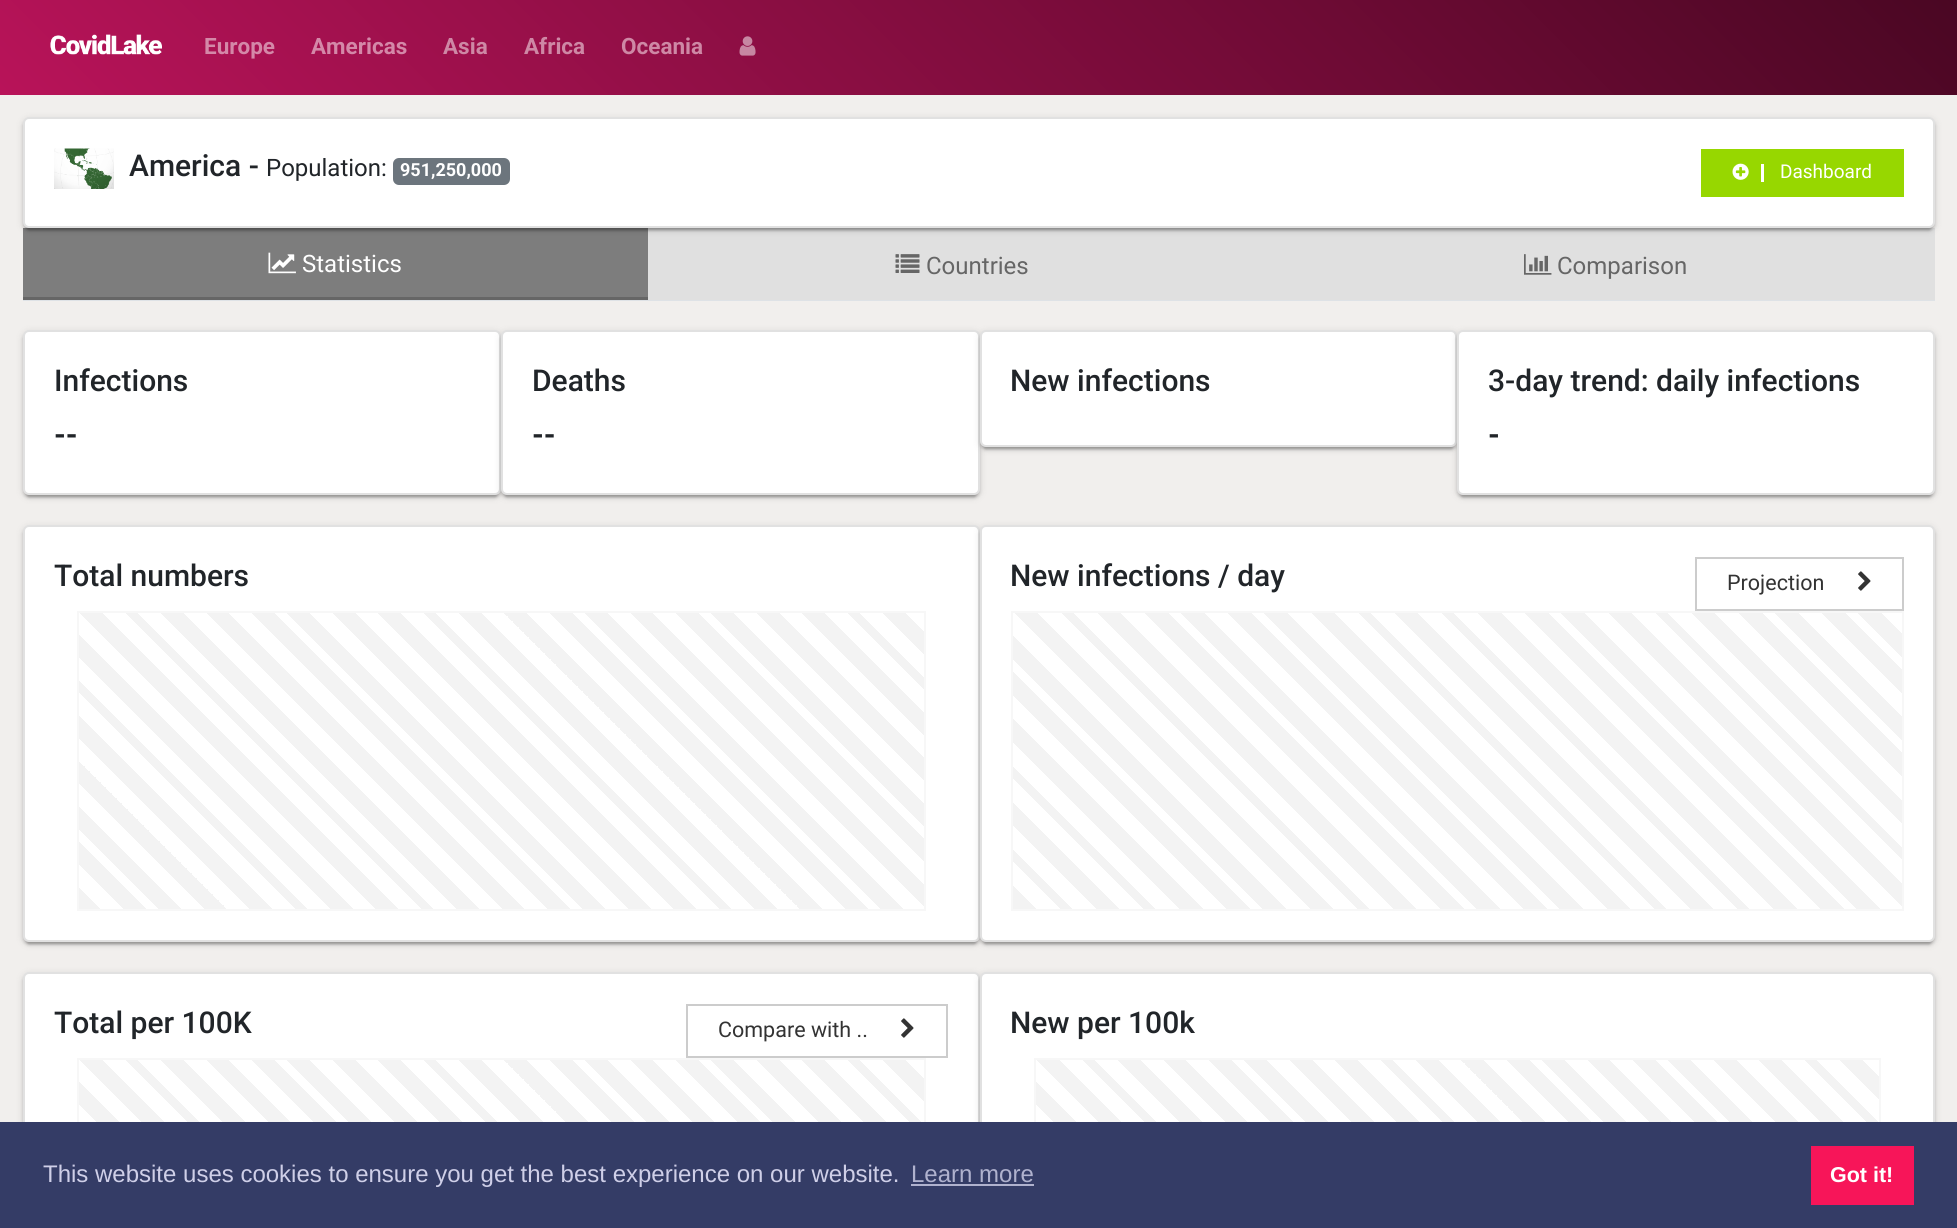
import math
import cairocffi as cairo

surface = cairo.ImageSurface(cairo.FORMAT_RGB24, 1957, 1228)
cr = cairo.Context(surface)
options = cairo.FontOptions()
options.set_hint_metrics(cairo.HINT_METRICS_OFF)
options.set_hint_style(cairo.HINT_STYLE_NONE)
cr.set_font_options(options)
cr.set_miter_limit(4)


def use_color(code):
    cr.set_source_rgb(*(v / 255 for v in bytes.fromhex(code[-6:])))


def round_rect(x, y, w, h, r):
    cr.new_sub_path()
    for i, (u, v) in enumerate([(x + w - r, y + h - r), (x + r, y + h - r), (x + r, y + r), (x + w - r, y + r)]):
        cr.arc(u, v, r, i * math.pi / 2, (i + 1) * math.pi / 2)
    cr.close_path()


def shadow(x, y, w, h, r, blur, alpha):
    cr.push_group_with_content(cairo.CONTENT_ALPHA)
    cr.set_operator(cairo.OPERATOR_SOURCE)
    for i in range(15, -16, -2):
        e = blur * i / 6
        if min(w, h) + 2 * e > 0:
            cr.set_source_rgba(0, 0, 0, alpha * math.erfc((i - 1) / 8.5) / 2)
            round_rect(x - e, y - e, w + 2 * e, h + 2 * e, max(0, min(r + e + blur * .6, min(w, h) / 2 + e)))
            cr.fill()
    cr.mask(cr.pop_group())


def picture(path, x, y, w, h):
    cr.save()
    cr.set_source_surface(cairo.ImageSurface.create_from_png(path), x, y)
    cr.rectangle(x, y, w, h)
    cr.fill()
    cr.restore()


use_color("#f1efed")
cr.paint()
gradient = cairo.LinearGradient(466, 560, 1492, -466)
gradient.add_color_stop_rgba(0, 0.722, 0.075, 0.349, 1)
gradient.add_color_stop_rgba(1, 0.29, 0.027, 0.137, 1)
cr.set_source(gradient)
cr.rectangle(0, 0, 1957, 95)
cr.fill()
picture("img1.png", 50, 34, 112, 21)
cr.select_font_face("Roboto", cairo.FONT_SLANT_NORMAL, cairo.FONT_WEIGHT_BOLD)
cr.set_font_size(22.5)
use_color("#d488a8")
cr.move_to(204, 54)
cr.show_text("Europe")
cr.move_to(311, 54)
cr.show_text("Americas")
use_color("#ce88a5")
cr.move_to(443, 54)
cr.show_text("Asia")
cr.move_to(524, 54)
cr.show_text("Africa")
cr.move_to(621, 54)
cr.show_text("Oceania")
picture("img2.png", 739, 36, 17, 20)
use_color("#7d7d7d")
cr.rectangle(23, 228, 625, 69)
cr.fill()
use_color("#e0e0e0")
cr.rectangle(648, 228, 1287, 72)
cr.fill()
use_color("#000000")
shadow(23, 119, 1912, 111, 6, 4, 0.12)
shadow(23, 120, 1912, 111, 6, 1.5, 0.14)
shadow(26, 125, 1906, 105, 3, 1, 0.2)
use_color("#ffffff")
round_rect(23, 117, 1912, 111, 6)
cr.fill()
round_rect(24, 118, 1910, 109, 5)
cr.set_source_rgba(0, 0, 0, 0.12)
cr.stroke()
picture("img3.png", 54, 148, 60, 41)
cr.select_font_face("Roboto Medium")
cr.set_font_size(30)
use_color("#212529")
cr.move_to(129, 176)
cr.show_text("America -")
cr.select_font_face("Roboto")
cr.set_font_size(24)
cr.move_to(266, 176)
cr.show_text("Population:")
use_color("#6c757d")
round_rect(393, 158, 117, 27, 6)
cr.fill()
cr.select_font_face("Roboto", cairo.FONT_SLANT_NORMAL, cairo.FONT_WEIGHT_BOLD)
cr.set_font_size(18)
use_color("#ffffff")
cr.move_to(400, 176)
cr.show_text("951,250,000")
use_color("#97d700")
cr.rectangle(1701, 149, 203, 48)
cr.fill()
use_color("#ffffff")
cr.rectangle(1761, 164, 3, 18)
cr.fill()
picture("img4.png", 1732, 163, 17, 17)
cr.select_font_face("Roboto")
cr.set_font_size(19)
cr.move_to(1780, 178)
cr.show_text("Dashboard")
use_color("#dee2e6")
cr.rectangle(23, 300, 1912, 1)
cr.fill()
use_color("#666666")
cr.rectangle(23, 297, 625, 3)
cr.fill()
picture("img5.png", 268, 252, 28, 22)
cr.set_font_size(24)
use_color("#ffffff")
cr.move_to(302, 272)
cr.show_text("Statistics")
picture("img6.png", 895, 254, 25, 19)
use_color("#666666")
cr.move_to(926, 274)
cr.show_text("Countries")
picture("img7.png", 1524, 254, 28, 21)
cr.move_to(1557, 274)
cr.show_text("Comparison")
use_color("#000000")
shadow(23, 332, 478, 165, 6, 4, 0.12)
shadow(23, 333, 478, 165, 6, 1.5, 0.14)
shadow(26, 338, 472, 159, 3, 1, 0.2)
use_color("#ffffff")
round_rect(23, 330, 478, 165, 6)
cr.fill()
round_rect(24, 331, 476, 163, 5)
cr.set_source_rgba(0, 0, 0, 0.12)
cr.stroke()
cr.select_font_face("Roboto Medium")
cr.set_font_size(30)
use_color("#212529")
cr.move_to(54, 391)
cr.show_text("Infections")
cr.select_font_face("Roboto", cairo.FONT_SLANT_NORMAL, cairo.FONT_WEIGHT_BOLD)
cr.move_to(54, 445)
cr.show_text("--")
use_color("#000000")
shadow(501, 332, 479, 165, 6, 4, 0.12)
shadow(501, 333, 479, 165, 6, 1.5, 0.14)
shadow(504, 338, 473, 159, 3, 1, 0.2)
use_color("#ffffff")
round_rect(501, 330, 479, 165, 6)
cr.fill()
round_rect(502, 331, 477, 163, 5)
cr.set_source_rgba(0, 0, 0, 0.12)
cr.stroke()
cr.select_font_face("Roboto Medium")
use_color("#212529")
cr.move_to(532, 391)
cr.show_text("Deaths")
cr.select_font_face("Roboto", cairo.FONT_SLANT_NORMAL, cairo.FONT_WEIGHT_BOLD)
cr.move_to(532, 445)
cr.show_text("--")
use_color("#000000")
shadow(980, 332, 477, 117, 6, 4, 0.12)
shadow(980, 333, 477, 117, 6, 1.5, 0.14)
shadow(983, 338, 471, 111, 3, 1, 0.2)
use_color("#ffffff")
round_rect(980, 330, 477, 117, 6)
cr.fill()
round_rect(981, 331, 475, 115, 5)
cr.set_source_rgba(0, 0, 0, 0.12)
cr.stroke()
cr.select_font_face("Roboto Medium")
use_color("#212529")
cr.move_to(1010, 391)
cr.show_text("New infections")
use_color("#000000")
shadow(1457, 332, 478, 165, 6, 4, 0.12)
shadow(1457, 333, 478, 165, 6, 1.5, 0.14)
shadow(1460, 338, 472, 159, 3, 1, 0.2)
use_color("#ffffff")
round_rect(1457, 330, 478, 165, 6)
cr.fill()
round_rect(1458, 331, 476, 163, 5)
cr.set_source_rgba(0, 0, 0, 0.12)
cr.stroke()
use_color("#212529")
cr.move_to(1488, 391)
cr.show_text("3-day trend: daily infections")
cr.select_font_face("Roboto", cairo.FONT_SLANT_NORMAL, cairo.FONT_WEIGHT_BOLD)
cr.move_to(1488, 445)
cr.show_text("-")
use_color("#000000")
shadow(23, 527, 957, 417, 6, 4, 0.12)
shadow(23, 528, 957, 417, 6, 1.5, 0.14)
shadow(26, 533, 951, 411, 3, 1, 0.2)
use_color("#ffffff")
round_rect(23, 525, 957, 417, 6)
cr.fill()
round_rect(24, 526, 955, 415, 5)
cr.set_source_rgba(0, 0, 0, 0.12)
cr.stroke()
cr.select_font_face("Roboto Medium")
use_color("#212529")
cr.move_to(54, 586)
cr.show_text("Total numbers")
gradient = cairo.LinearGradient(215, 1046, 788, 473)
gradient.add_color_stop_rgba(0, 0.953, 0.953, 0.953, 1)
gradient.add_color_stop_rgba(0.02, 0.953, 0.953, 0.953, 1)
gradient.add_color_stop_rgba(0.02, 1, 1, 1, 1)
gradient.add_color_stop_rgba(0.04, 1, 1, 1, 1)
gradient.add_color_stop_rgba(0.04, 0.953, 0.953, 0.953, 1)
gradient.add_color_stop_rgba(0.06, 0.953, 0.953, 0.953, 1)
gradient.add_color_stop_rgba(0.06, 1, 1, 1, 1)
gradient.add_color_stop_rgba(0.07, 1, 1, 1, 1)
gradient.add_color_stop_rgba(0.07, 0.953, 0.953, 0.953, 1)
gradient.add_color_stop_rgba(0.09, 0.953, 0.953, 0.953, 1)
gradient.add_color_stop_rgba(0.09, 1, 1, 1, 1)
gradient.add_color_stop_rgba(0.11, 1, 1, 1, 1)
gradient.add_color_stop_rgba(0.11, 0.953, 0.953, 0.953, 1)
gradient.add_color_stop_rgba(0.13, 0.953, 0.953, 0.953, 1)
gradient.add_color_stop_rgba(0.13, 1, 1, 1, 1)
gradient.add_color_stop_rgba(0.15, 1, 1, 1, 1)
gradient.add_color_stop_rgba(0.15, 0.953, 0.953, 0.953, 1)
gradient.add_color_stop_rgba(0.17, 0.953, 0.953, 0.953, 1)
gradient.add_color_stop_rgba(0.17, 1, 1, 1, 1)
gradient.add_color_stop_rgba(0.19, 1, 1, 1, 1)
gradient.add_color_stop_rgba(0.19, 0.953, 0.953, 0.953, 1)
gradient.add_color_stop_rgba(0.2, 0.953, 0.953, 0.953, 1)
gradient.add_color_stop_rgba(0.2, 1, 1, 1, 1)
gradient.add_color_stop_rgba(0.22, 1, 1, 1, 1)
gradient.add_color_stop_rgba(0.22, 0.953, 0.953, 0.953, 1)
gradient.add_color_stop_rgba(0.24, 0.953, 0.953, 0.953, 1)
gradient.add_color_stop_rgba(0.24, 1, 1, 1, 1)
gradient.add_color_stop_rgba(0.26, 1, 1, 1, 1)
gradient.add_color_stop_rgba(0.26, 0.953, 0.953, 0.953, 1)
gradient.add_color_stop_rgba(0.28, 0.953, 0.953, 0.953, 1)
gradient.add_color_stop_rgba(0.28, 1, 1, 1, 1)
gradient.add_color_stop_rgba(0.3, 1, 1, 1, 1)
gradient.add_color_stop_rgba(0.3, 0.953, 0.953, 0.953, 1)
gradient.add_color_stop_rgba(0.31, 0.953, 0.953, 0.953, 1)
gradient.add_color_stop_rgba(0.31, 1, 1, 1, 1)
gradient.add_color_stop_rgba(0.33, 1, 1, 1, 1)
gradient.add_color_stop_rgba(0.33, 0.953, 0.953, 0.953, 1)
gradient.add_color_stop_rgba(0.35, 0.953, 0.953, 0.953, 1)
gradient.add_color_stop_rgba(0.35, 1, 1, 1, 1)
gradient.add_color_stop_rgba(0.37, 1, 1, 1, 1)
gradient.add_color_stop_rgba(0.37, 0.953, 0.953, 0.953, 1)
gradient.add_color_stop_rgba(0.39, 0.953, 0.953, 0.953, 1)
gradient.add_color_stop_rgba(0.39, 1, 1, 1, 1)
gradient.add_color_stop_rgba(0.41, 1, 1, 1, 1)
gradient.add_color_stop_rgba(0.41, 0.953, 0.953, 0.953, 1)
gradient.add_color_stop_rgba(0.43, 0.953, 0.953, 0.953, 1)
gradient.add_color_stop_rgba(0.43, 1, 1, 1, 1)
gradient.add_color_stop_rgba(0.44, 1, 1, 1, 1)
gradient.add_color_stop_rgba(0.44, 0.953, 0.953, 0.953, 1)
gradient.add_color_stop_rgba(0.46, 0.953, 0.953, 0.953, 1)
gradient.add_color_stop_rgba(0.46, 1, 1, 1, 1)
gradient.add_color_stop_rgba(0.48, 1, 1, 1, 1)
gradient.add_color_stop_rgba(0.48, 0.953, 0.953, 0.953, 1)
gradient.add_color_stop_rgba(0.5, 0.953, 0.953, 0.953, 1)
gradient.add_color_stop_rgba(0.5, 1, 1, 1, 1)
gradient.add_color_stop_rgba(0.52, 1, 1, 1, 1)
gradient.add_color_stop_rgba(0.52, 0.953, 0.953, 0.953, 1)
gradient.add_color_stop_rgba(0.54, 0.953, 0.953, 0.953, 1)
gradient.add_color_stop_rgba(0.54, 1, 1, 1, 1)
gradient.add_color_stop_rgba(0.56, 1, 1, 1, 1)
gradient.add_color_stop_rgba(0.56, 0.953, 0.953, 0.953, 1)
gradient.add_color_stop_rgba(0.57, 0.953, 0.953, 0.953, 1)
gradient.add_color_stop_rgba(0.57, 1, 1, 1, 1)
gradient.add_color_stop_rgba(0.59, 1, 1, 1, 1)
gradient.add_color_stop_rgba(0.59, 0.953, 0.953, 0.953, 1)
gradient.add_color_stop_rgba(0.61, 0.953, 0.953, 0.953, 1)
gradient.add_color_stop_rgba(0.61, 1, 1, 1, 1)
gradient.add_color_stop_rgba(0.63, 1, 1, 1, 1)
gradient.add_color_stop_rgba(0.63, 0.953, 0.953, 0.953, 1)
gradient.add_color_stop_rgba(0.65, 0.953, 0.953, 0.953, 1)
gradient.add_color_stop_rgba(0.65, 1, 1, 1, 1)
gradient.add_color_stop_rgba(0.67, 1, 1, 1, 1)
gradient.add_color_stop_rgba(0.67, 0.953, 0.953, 0.953, 1)
gradient.add_color_stop_rgba(0.69, 0.953, 0.953, 0.953, 1)
gradient.add_color_stop_rgba(0.69, 1, 1, 1, 1)
gradient.add_color_stop_rgba(0.7, 1, 1, 1, 1)
gradient.add_color_stop_rgba(0.7, 0.953, 0.953, 0.953, 1)
gradient.add_color_stop_rgba(0.72, 0.953, 0.953, 0.953, 1)
gradient.add_color_stop_rgba(0.72, 1, 1, 1, 1)
gradient.add_color_stop_rgba(0.74, 1, 1, 1, 1)
gradient.add_color_stop_rgba(0.74, 0.953, 0.953, 0.953, 1)
gradient.add_color_stop_rgba(0.76, 0.953, 0.953, 0.953, 1)
gradient.add_color_stop_rgba(0.76, 1, 1, 1, 1)
gradient.add_color_stop_rgba(0.78, 1, 1, 1, 1)
gradient.add_color_stop_rgba(0.78, 0.953, 0.953, 0.953, 1)
gradient.add_color_stop_rgba(0.8, 0.953, 0.953, 0.953, 1)
gradient.add_color_stop_rgba(0.8, 1, 1, 1, 1)
gradient.add_color_stop_rgba(0.81, 1, 1, 1, 1)
gradient.add_color_stop_rgba(0.81, 0.953, 0.953, 0.953, 1)
gradient.add_color_stop_rgba(0.83, 0.953, 0.953, 0.953, 1)
gradient.add_color_stop_rgba(0.83, 1, 1, 1, 1)
gradient.add_color_stop_rgba(0.85, 1, 1, 1, 1)
gradient.add_color_stop_rgba(0.85, 0.953, 0.953, 0.953, 1)
gradient.add_color_stop_rgba(0.87, 0.953, 0.953, 0.953, 1)
gradient.add_color_stop_rgba(0.87, 1, 1, 1, 1)
gradient.add_color_stop_rgba(0.89, 1, 1, 1, 1)
gradient.add_color_stop_rgba(0.89, 0.953, 0.953, 0.953, 1)
gradient.add_color_stop_rgba(0.91, 0.953, 0.953, 0.953, 1)
gradient.add_color_stop_rgba(0.91, 1, 1, 1, 1)
gradient.add_color_stop_rgba(0.93, 1, 1, 1, 1)
gradient.add_color_stop_rgba(0.93, 0.953, 0.953, 0.953, 1)
gradient.add_color_stop_rgba(0.94, 0.953, 0.953, 0.953, 1)
gradient.add_color_stop_rgba(0.94, 1, 1, 1, 1)
gradient.add_color_stop_rgba(0.96, 1, 1, 1, 1)
gradient.add_color_stop_rgba(0.96, 0.953, 0.953, 0.953, 1)
gradient.add_color_stop_rgba(0.98, 0.953, 0.953, 0.953, 1)
gradient.add_color_stop_rgba(0.98, 1, 1, 1, 1)
gradient.add_color_stop_rgba(1, 1, 1, 1, 1)
cr.set_source(gradient)
cr.rectangle(79, 613, 845, 296)
cr.fill()
cr.rectangle(78, 612, 847, 298)
use_color("#f7f7f7")
cr.stroke()
use_color("#000000")
shadow(980, 527, 955, 417, 6, 4, 0.12)
shadow(980, 528, 955, 417, 6, 1.5, 0.14)
shadow(983, 533, 949, 411, 3, 1, 0.2)
use_color("#ffffff")
round_rect(980, 525, 955, 417, 6)
cr.fill()
round_rect(981, 526, 953, 415, 5)
cr.set_source_rgba(0, 0, 0, 0.12)
cr.stroke()
use_color("#212529")
cr.move_to(1010, 586)
cr.show_text("New infections / day")
cr.rectangle(1696, 558, 207, 52)
use_color("#cccccc")
cr.stroke()
cr.select_font_face("Roboto")
cr.set_font_size(21.5)
use_color("#333333")
cr.move_to(1727, 590)
cr.show_text("Projection")
picture("img8.png", 1858, 571, 13, 20)
gradient = cairo.LinearGradient(1161, 1057, 1755, 463)
gradient.add_color_stop_rgba(0, 0.953, 0.953, 0.953, 1)
gradient.add_color_stop_rgba(0.02, 0.953, 0.953, 0.953, 1)
gradient.add_color_stop_rgba(0.02, 1, 1, 1, 1)
gradient.add_color_stop_rgba(0.04, 1, 1, 1, 1)
gradient.add_color_stop_rgba(0.04, 0.953, 0.953, 0.953, 1)
gradient.add_color_stop_rgba(0.05, 0.953, 0.953, 0.953, 1)
gradient.add_color_stop_rgba(0.05, 1, 1, 1, 1)
gradient.add_color_stop_rgba(0.07, 1, 1, 1, 1)
gradient.add_color_stop_rgba(0.07, 0.953, 0.953, 0.953, 1)
gradient.add_color_stop_rgba(0.09, 0.953, 0.953, 0.953, 1)
gradient.add_color_stop_rgba(0.09, 1, 1, 1, 1)
gradient.add_color_stop_rgba(0.11, 1, 1, 1, 1)
gradient.add_color_stop_rgba(0.11, 0.953, 0.953, 0.953, 1)
gradient.add_color_stop_rgba(0.12, 0.953, 0.953, 0.953, 1)
gradient.add_color_stop_rgba(0.12, 1, 1, 1, 1)
gradient.add_color_stop_rgba(0.14, 1, 1, 1, 1)
gradient.add_color_stop_rgba(0.14, 0.953, 0.953, 0.953, 1)
gradient.add_color_stop_rgba(0.16, 0.953, 0.953, 0.953, 1)
gradient.add_color_stop_rgba(0.16, 1, 1, 1, 1)
gradient.add_color_stop_rgba(0.18, 1, 1, 1, 1)
gradient.add_color_stop_rgba(0.18, 0.953, 0.953, 0.953, 1)
gradient.add_color_stop_rgba(0.2, 0.953, 0.953, 0.953, 1)
gradient.add_color_stop_rgba(0.2, 1, 1, 1, 1)
gradient.add_color_stop_rgba(0.21, 1, 1, 1, 1)
gradient.add_color_stop_rgba(0.21, 0.953, 0.953, 0.953, 1)
gradient.add_color_stop_rgba(0.23, 0.953, 0.953, 0.953, 1)
gradient.add_color_stop_rgba(0.23, 1, 1, 1, 1)
gradient.add_color_stop_rgba(0.25, 1, 1, 1, 1)
gradient.add_color_stop_rgba(0.25, 0.953, 0.953, 0.953, 1)
gradient.add_color_stop_rgba(0.27, 0.953, 0.953, 0.953, 1)
gradient.add_color_stop_rgba(0.27, 1, 1, 1, 1)
gradient.add_color_stop_rgba(0.29, 1, 1, 1, 1)
gradient.add_color_stop_rgba(0.29, 0.953, 0.953, 0.953, 1)
gradient.add_color_stop_rgba(0.3, 0.953, 0.953, 0.953, 1)
gradient.add_color_stop_rgba(0.3, 1, 1, 1, 1)
gradient.add_color_stop_rgba(0.32, 1, 1, 1, 1)
gradient.add_color_stop_rgba(0.32, 0.953, 0.953, 0.953, 1)
gradient.add_color_stop_rgba(0.34, 0.953, 0.953, 0.953, 1)
gradient.add_color_stop_rgba(0.34, 1, 1, 1, 1)
gradient.add_color_stop_rgba(0.36, 1, 1, 1, 1)
gradient.add_color_stop_rgba(0.36, 0.953, 0.953, 0.953, 1)
gradient.add_color_stop_rgba(0.38, 0.953, 0.953, 0.953, 1)
gradient.add_color_stop_rgba(0.38, 1, 1, 1, 1)
gradient.add_color_stop_rgba(0.39, 1, 1, 1, 1)
gradient.add_color_stop_rgba(0.39, 0.953, 0.953, 0.953, 1)
gradient.add_color_stop_rgba(0.41, 0.953, 0.953, 0.953, 1)
gradient.add_color_stop_rgba(0.41, 1, 1, 1, 1)
gradient.add_color_stop_rgba(0.43, 1, 1, 1, 1)
gradient.add_color_stop_rgba(0.43, 0.953, 0.953, 0.953, 1)
gradient.add_color_stop_rgba(0.45, 0.953, 0.953, 0.953, 1)
gradient.add_color_stop_rgba(0.45, 1, 1, 1, 1)
gradient.add_color_stop_rgba(0.46, 1, 1, 1, 1)
gradient.add_color_stop_rgba(0.46, 0.953, 0.953, 0.953, 1)
gradient.add_color_stop_rgba(0.48, 0.953, 0.953, 0.953, 1)
gradient.add_color_stop_rgba(0.48, 1, 1, 1, 1)
gradient.add_color_stop_rgba(0.5, 1, 1, 1, 1)
gradient.add_color_stop_rgba(0.5, 0.953, 0.953, 0.953, 1)
gradient.add_color_stop_rgba(0.52, 0.953, 0.953, 0.953, 1)
gradient.add_color_stop_rgba(0.52, 1, 1, 1, 1)
gradient.add_color_stop_rgba(0.54, 1, 1, 1, 1)
gradient.add_color_stop_rgba(0.54, 0.953, 0.953, 0.953, 1)
gradient.add_color_stop_rgba(0.55, 0.953, 0.953, 0.953, 1)
gradient.add_color_stop_rgba(0.55, 1, 1, 1, 1)
gradient.add_color_stop_rgba(0.57, 1, 1, 1, 1)
gradient.add_color_stop_rgba(0.57, 0.953, 0.953, 0.953, 1)
gradient.add_color_stop_rgba(0.59, 0.953, 0.953, 0.953, 1)
gradient.add_color_stop_rgba(0.59, 1, 1, 1, 1)
gradient.add_color_stop_rgba(0.61, 1, 1, 1, 1)
gradient.add_color_stop_rgba(0.61, 0.953, 0.953, 0.953, 1)
gradient.add_color_stop_rgba(0.62, 0.953, 0.953, 0.953, 1)
gradient.add_color_stop_rgba(0.62, 1, 1, 1, 1)
gradient.add_color_stop_rgba(0.64, 1, 1, 1, 1)
gradient.add_color_stop_rgba(0.64, 0.953, 0.953, 0.953, 1)
gradient.add_color_stop_rgba(0.66, 0.953, 0.953, 0.953, 1)
gradient.add_color_stop_rgba(0.66, 1, 1, 1, 1)
gradient.add_color_stop_rgba(0.68, 1, 1, 1, 1)
gradient.add_color_stop_rgba(0.68, 0.953, 0.953, 0.953, 1)
gradient.add_color_stop_rgba(0.7, 0.953, 0.953, 0.953, 1)
gradient.add_color_stop_rgba(0.7, 1, 1, 1, 1)
gradient.add_color_stop_rgba(0.71, 1, 1, 1, 1)
gradient.add_color_stop_rgba(0.71, 0.953, 0.953, 0.953, 1)
gradient.add_color_stop_rgba(0.73, 0.953, 0.953, 0.953, 1)
gradient.add_color_stop_rgba(0.73, 1, 1, 1, 1)
gradient.add_color_stop_rgba(0.75, 1, 1, 1, 1)
gradient.add_color_stop_rgba(0.75, 0.953, 0.953, 0.953, 1)
gradient.add_color_stop_rgba(0.77, 0.953, 0.953, 0.953, 1)
gradient.add_color_stop_rgba(0.77, 1, 1, 1, 1)
gradient.add_color_stop_rgba(0.79, 1, 1, 1, 1)
gradient.add_color_stop_rgba(0.79, 0.953, 0.953, 0.953, 1)
gradient.add_color_stop_rgba(0.8, 0.953, 0.953, 0.953, 1)
gradient.add_color_stop_rgba(0.8, 1, 1, 1, 1)
gradient.add_color_stop_rgba(0.82, 1, 1, 1, 1)
gradient.add_color_stop_rgba(0.82, 0.953, 0.953, 0.953, 1)
gradient.add_color_stop_rgba(0.84, 0.953, 0.953, 0.953, 1)
gradient.add_color_stop_rgba(0.84, 1, 1, 1, 1)
gradient.add_color_stop_rgba(0.86, 1, 1, 1, 1)
gradient.add_color_stop_rgba(0.86, 0.953, 0.953, 0.953, 1)
gradient.add_color_stop_rgba(0.88, 0.953, 0.953, 0.953, 1)
gradient.add_color_stop_rgba(0.88, 1, 1, 1, 1)
gradient.add_color_stop_rgba(0.89, 1, 1, 1, 1)
gradient.add_color_stop_rgba(0.89, 0.953, 0.953, 0.953, 1)
gradient.add_color_stop_rgba(0.91, 0.953, 0.953, 0.953, 1)
gradient.add_color_stop_rgba(0.91, 1, 1, 1, 1)
gradient.add_color_stop_rgba(0.93, 1, 1, 1, 1)
gradient.add_color_stop_rgba(0.93, 0.953, 0.953, 0.953, 1)
gradient.add_color_stop_rgba(0.95, 0.953, 0.953, 0.953, 1)
gradient.add_color_stop_rgba(0.95, 1, 1, 1, 1)
gradient.add_color_stop_rgba(0.96, 1, 1, 1, 1)
gradient.add_color_stop_rgba(0.96, 0.953, 0.953, 0.953, 1)
gradient.add_color_stop_rgba(0.98, 0.953, 0.953, 0.953, 1)
gradient.add_color_stop_rgba(0.98, 1, 1, 1, 1)
gradient.add_color_stop_rgba(1, 1, 1, 1, 1)
cr.set_source(gradient)
cr.rectangle(1013, 613, 889, 296)
cr.fill()
cr.rectangle(1012, 612, 891, 298)
use_color("#f7f7f7")
cr.stroke()
use_color("#000000")
shadow(23, 974, 957, 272, 6, 4, 0.12)
shadow(23, 975, 957, 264, 6, 1.5, 0.14)
use_color("#ffffff")
round_rect(23, 972, 957, 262, 6)
cr.fill()
round_rect(24, 973, 955, 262, 5)
cr.set_source_rgba(0, 0, 0, 0.12)
cr.stroke()
cr.select_font_face("Roboto Medium")
cr.set_font_size(30)
use_color("#212529")
cr.move_to(54, 1033)
cr.show_text("Total per 100K")
cr.rectangle(687, 1005, 260, 52)
use_color("#cccccc")
cr.stroke()
cr.select_font_face("Roboto")
cr.set_font_size(21.5)
use_color("#333333")
cr.move_to(718, 1037)
cr.show_text("Compare with ..")
picture("img8.png", 901, 1018, 13, 20)
gradient = cairo.LinearGradient(215, 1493, 788, 920)
gradient.add_color_stop_rgba(0, 0.953, 0.953, 0.953, 1)
gradient.add_color_stop_rgba(0.02, 0.953, 0.953, 0.953, 1)
gradient.add_color_stop_rgba(0.02, 1, 1, 1, 1)
gradient.add_color_stop_rgba(0.04, 1, 1, 1, 1)
gradient.add_color_stop_rgba(0.04, 0.953, 0.953, 0.953, 1)
gradient.add_color_stop_rgba(0.06, 0.953, 0.953, 0.953, 1)
gradient.add_color_stop_rgba(0.06, 1, 1, 1, 1)
gradient.add_color_stop_rgba(0.07, 1, 1, 1, 1)
gradient.add_color_stop_rgba(0.07, 0.953, 0.953, 0.953, 1)
gradient.add_color_stop_rgba(0.09, 0.953, 0.953, 0.953, 1)
gradient.add_color_stop_rgba(0.09, 1, 1, 1, 1)
gradient.add_color_stop_rgba(0.11, 1, 1, 1, 1)
gradient.add_color_stop_rgba(0.11, 0.953, 0.953, 0.953, 1)
gradient.add_color_stop_rgba(0.13, 0.953, 0.953, 0.953, 1)
gradient.add_color_stop_rgba(0.13, 1, 1, 1, 1)
gradient.add_color_stop_rgba(0.15, 1, 1, 1, 1)
gradient.add_color_stop_rgba(0.15, 0.953, 0.953, 0.953, 1)
gradient.add_color_stop_rgba(0.17, 0.953, 0.953, 0.953, 1)
gradient.add_color_stop_rgba(0.17, 1, 1, 1, 1)
gradient.add_color_stop_rgba(0.19, 1, 1, 1, 1)
gradient.add_color_stop_rgba(0.19, 0.953, 0.953, 0.953, 1)
gradient.add_color_stop_rgba(0.2, 0.953, 0.953, 0.953, 1)
gradient.add_color_stop_rgba(0.2, 1, 1, 1, 1)
gradient.add_color_stop_rgba(0.22, 1, 1, 1, 1)
gradient.add_color_stop_rgba(0.22, 0.953, 0.953, 0.953, 1)
gradient.add_color_stop_rgba(0.24, 0.953, 0.953, 0.953, 1)
gradient.add_color_stop_rgba(0.24, 1, 1, 1, 1)
gradient.add_color_stop_rgba(0.26, 1, 1, 1, 1)
gradient.add_color_stop_rgba(0.26, 0.953, 0.953, 0.953, 1)
gradient.add_color_stop_rgba(0.28, 0.953, 0.953, 0.953, 1)
gradient.add_color_stop_rgba(0.28, 1, 1, 1, 1)
gradient.add_color_stop_rgba(0.3, 1, 1, 1, 1)
gradient.add_color_stop_rgba(0.3, 0.953, 0.953, 0.953, 1)
gradient.add_color_stop_rgba(0.31, 0.953, 0.953, 0.953, 1)
gradient.add_color_stop_rgba(0.31, 1, 1, 1, 1)
gradient.add_color_stop_rgba(0.33, 1, 1, 1, 1)
gradient.add_color_stop_rgba(0.33, 0.953, 0.953, 0.953, 1)
gradient.add_color_stop_rgba(0.35, 0.953, 0.953, 0.953, 1)
gradient.add_color_stop_rgba(0.35, 1, 1, 1, 1)
gradient.add_color_stop_rgba(0.37, 1, 1, 1, 1)
gradient.add_color_stop_rgba(0.37, 0.953, 0.953, 0.953, 1)
gradient.add_color_stop_rgba(0.39, 0.953, 0.953, 0.953, 1)
gradient.add_color_stop_rgba(0.39, 1, 1, 1, 1)
gradient.add_color_stop_rgba(0.41, 1, 1, 1, 1)
gradient.add_color_stop_rgba(0.41, 0.953, 0.953, 0.953, 1)
gradient.add_color_stop_rgba(0.43, 0.953, 0.953, 0.953, 1)
gradient.add_color_stop_rgba(0.43, 1, 1, 1, 1)
gradient.add_color_stop_rgba(0.44, 1, 1, 1, 1)
gradient.add_color_stop_rgba(0.44, 0.953, 0.953, 0.953, 1)
gradient.add_color_stop_rgba(0.46, 0.953, 0.953, 0.953, 1)
gradient.add_color_stop_rgba(0.46, 1, 1, 1, 1)
gradient.add_color_stop_rgba(0.48, 1, 1, 1, 1)
gradient.add_color_stop_rgba(0.48, 0.953, 0.953, 0.953, 1)
gradient.add_color_stop_rgba(0.5, 0.953, 0.953, 0.953, 1)
gradient.add_color_stop_rgba(0.5, 1, 1, 1, 1)
gradient.add_color_stop_rgba(0.52, 1, 1, 1, 1)
gradient.add_color_stop_rgba(0.52, 0.953, 0.953, 0.953, 1)
gradient.add_color_stop_rgba(0.54, 0.953, 0.953, 0.953, 1)
gradient.add_color_stop_rgba(0.54, 1, 1, 1, 1)
gradient.add_color_stop_rgba(0.56, 1, 1, 1, 1)
gradient.add_color_stop_rgba(0.56, 0.953, 0.953, 0.953, 1)
gradient.add_color_stop_rgba(0.57, 0.953, 0.953, 0.953, 1)
gradient.add_color_stop_rgba(0.57, 1, 1, 1, 1)
gradient.add_color_stop_rgba(0.59, 1, 1, 1, 1)
gradient.add_color_stop_rgba(0.59, 0.953, 0.953, 0.953, 1)
gradient.add_color_stop_rgba(0.61, 0.953, 0.953, 0.953, 1)
gradient.add_color_stop_rgba(0.61, 1, 1, 1, 1)
gradient.add_color_stop_rgba(0.63, 1, 1, 1, 1)
gradient.add_color_stop_rgba(0.63, 0.953, 0.953, 0.953, 1)
gradient.add_color_stop_rgba(0.65, 0.953, 0.953, 0.953, 1)
gradient.add_color_stop_rgba(0.65, 1, 1, 1, 1)
gradient.add_color_stop_rgba(0.67, 1, 1, 1, 1)
gradient.add_color_stop_rgba(0.67, 0.953, 0.953, 0.953, 1)
gradient.add_color_stop_rgba(0.69, 0.953, 0.953, 0.953, 1)
gradient.add_color_stop_rgba(0.69, 1, 1, 1, 1)
gradient.add_color_stop_rgba(0.7, 1, 1, 1, 1)
gradient.add_color_stop_rgba(0.7, 0.953, 0.953, 0.953, 1)
gradient.add_color_stop_rgba(0.72, 0.953, 0.953, 0.953, 1)
gradient.add_color_stop_rgba(0.72, 1, 1, 1, 1)
gradient.add_color_stop_rgba(0.74, 1, 1, 1, 1)
gradient.add_color_stop_rgba(0.74, 0.953, 0.953, 0.953, 1)
gradient.add_color_stop_rgba(0.76, 0.953, 0.953, 0.953, 1)
gradient.add_color_stop_rgba(0.76, 1, 1, 1, 1)
gradient.add_color_stop_rgba(0.78, 1, 1, 1, 1)
gradient.add_color_stop_rgba(0.78, 0.953, 0.953, 0.953, 1)
gradient.add_color_stop_rgba(0.8, 0.953, 0.953, 0.953, 1)
gradient.add_color_stop_rgba(0.8, 1, 1, 1, 1)
gradient.add_color_stop_rgba(0.81, 1, 1, 1, 1)
gradient.add_color_stop_rgba(0.81, 0.953, 0.953, 0.953, 1)
gradient.add_color_stop_rgba(0.83, 0.953, 0.953, 0.953, 1)
gradient.add_color_stop_rgba(0.83, 1, 1, 1, 1)
gradient.add_color_stop_rgba(0.85, 1, 1, 1, 1)
gradient.add_color_stop_rgba(0.85, 0.953, 0.953, 0.953, 1)
gradient.add_color_stop_rgba(0.87, 0.953, 0.953, 0.953, 1)
gradient.add_color_stop_rgba(0.87, 1, 1, 1, 1)
gradient.add_color_stop_rgba(0.89, 1, 1, 1, 1)
gradient.add_color_stop_rgba(0.89, 0.953, 0.953, 0.953, 1)
gradient.add_color_stop_rgba(0.91, 0.953, 0.953, 0.953, 1)
gradient.add_color_stop_rgba(0.91, 1, 1, 1, 1)
gradient.add_color_stop_rgba(0.93, 1, 1, 1, 1)
gradient.add_color_stop_rgba(0.93, 0.953, 0.953, 0.953, 1)
gradient.add_color_stop_rgba(0.94, 0.953, 0.953, 0.953, 1)
gradient.add_color_stop_rgba(0.94, 1, 1, 1, 1)
gradient.add_color_stop_rgba(0.96, 1, 1, 1, 1)
gradient.add_color_stop_rgba(0.96, 0.953, 0.953, 0.953, 1)
gradient.add_color_stop_rgba(0.98, 0.953, 0.953, 0.953, 1)
gradient.add_color_stop_rgba(0.98, 1, 1, 1, 1)
gradient.add_color_stop_rgba(1, 1, 1, 1, 1)
cr.set_source(gradient)
cr.rectangle(79, 1060, 845, 62)
cr.fill()
cr.rectangle(78, 1059, 847, 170)
use_color("#f7f7f7")
cr.stroke()
use_color("#000000")
shadow(980, 974, 955, 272, 6, 4, 0.12)
shadow(980, 975, 955, 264, 6, 1.5, 0.14)
use_color("#ffffff")
round_rect(980, 972, 955, 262, 6)
cr.fill()
round_rect(981, 973, 953, 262, 5)
cr.set_source_rgba(0, 0, 0, 0.12)
cr.stroke()
cr.select_font_face("Roboto Medium")
cr.set_font_size(30)
use_color("#212529")
cr.move_to(1010, 1033)
cr.show_text("New per 100k")
gradient = cairo.LinearGradient(1172, 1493, 1745, 920)
gradient.add_color_stop_rgba(0, 0.953, 0.953, 0.953, 1)
gradient.add_color_stop_rgba(0.02, 0.953, 0.953, 0.953, 1)
gradient.add_color_stop_rgba(0.02, 1, 1, 1, 1)
gradient.add_color_stop_rgba(0.04, 1, 1, 1, 1)
gradient.add_color_stop_rgba(0.04, 0.953, 0.953, 0.953, 1)
gradient.add_color_stop_rgba(0.06, 0.953, 0.953, 0.953, 1)
gradient.add_color_stop_rgba(0.06, 1, 1, 1, 1)
gradient.add_color_stop_rgba(0.07, 1, 1, 1, 1)
gradient.add_color_stop_rgba(0.07, 0.953, 0.953, 0.953, 1)
gradient.add_color_stop_rgba(0.09, 0.953, 0.953, 0.953, 1)
gradient.add_color_stop_rgba(0.09, 1, 1, 1, 1)
gradient.add_color_stop_rgba(0.11, 1, 1, 1, 1)
gradient.add_color_stop_rgba(0.11, 0.953, 0.953, 0.953, 1)
gradient.add_color_stop_rgba(0.13, 0.953, 0.953, 0.953, 1)
gradient.add_color_stop_rgba(0.13, 1, 1, 1, 1)
gradient.add_color_stop_rgba(0.15, 1, 1, 1, 1)
gradient.add_color_stop_rgba(0.15, 0.953, 0.953, 0.953, 1)
gradient.add_color_stop_rgba(0.17, 0.953, 0.953, 0.953, 1)
gradient.add_color_stop_rgba(0.17, 1, 1, 1, 1)
gradient.add_color_stop_rgba(0.19, 1, 1, 1, 1)
gradient.add_color_stop_rgba(0.19, 0.953, 0.953, 0.953, 1)
gradient.add_color_stop_rgba(0.2, 0.953, 0.953, 0.953, 1)
gradient.add_color_stop_rgba(0.2, 1, 1, 1, 1)
gradient.add_color_stop_rgba(0.22, 1, 1, 1, 1)
gradient.add_color_stop_rgba(0.22, 0.953, 0.953, 0.953, 1)
gradient.add_color_stop_rgba(0.24, 0.953, 0.953, 0.953, 1)
gradient.add_color_stop_rgba(0.24, 1, 1, 1, 1)
gradient.add_color_stop_rgba(0.26, 1, 1, 1, 1)
gradient.add_color_stop_rgba(0.26, 0.953, 0.953, 0.953, 1)
gradient.add_color_stop_rgba(0.28, 0.953, 0.953, 0.953, 1)
gradient.add_color_stop_rgba(0.28, 1, 1, 1, 1)
gradient.add_color_stop_rgba(0.3, 1, 1, 1, 1)
gradient.add_color_stop_rgba(0.3, 0.953, 0.953, 0.953, 1)
gradient.add_color_stop_rgba(0.31, 0.953, 0.953, 0.953, 1)
gradient.add_color_stop_rgba(0.31, 1, 1, 1, 1)
gradient.add_color_stop_rgba(0.33, 1, 1, 1, 1)
gradient.add_color_stop_rgba(0.33, 0.953, 0.953, 0.953, 1)
gradient.add_color_stop_rgba(0.35, 0.953, 0.953, 0.953, 1)
gradient.add_color_stop_rgba(0.35, 1, 1, 1, 1)
gradient.add_color_stop_rgba(0.37, 1, 1, 1, 1)
gradient.add_color_stop_rgba(0.37, 0.953, 0.953, 0.953, 1)
gradient.add_color_stop_rgba(0.39, 0.953, 0.953, 0.953, 1)
gradient.add_color_stop_rgba(0.39, 1, 1, 1, 1)
gradient.add_color_stop_rgba(0.41, 1, 1, 1, 1)
gradient.add_color_stop_rgba(0.41, 0.953, 0.953, 0.953, 1)
gradient.add_color_stop_rgba(0.43, 0.953, 0.953, 0.953, 1)
gradient.add_color_stop_rgba(0.43, 1, 1, 1, 1)
gradient.add_color_stop_rgba(0.44, 1, 1, 1, 1)
gradient.add_color_stop_rgba(0.44, 0.953, 0.953, 0.953, 1)
gradient.add_color_stop_rgba(0.46, 0.953, 0.953, 0.953, 1)
gradient.add_color_stop_rgba(0.46, 1, 1, 1, 1)
gradient.add_color_stop_rgba(0.48, 1, 1, 1, 1)
gradient.add_color_stop_rgba(0.48, 0.953, 0.953, 0.953, 1)
gradient.add_color_stop_rgba(0.5, 0.953, 0.953, 0.953, 1)
gradient.add_color_stop_rgba(0.5, 1, 1, 1, 1)
gradient.add_color_stop_rgba(0.52, 1, 1, 1, 1)
gradient.add_color_stop_rgba(0.52, 0.953, 0.953, 0.953, 1)
gradient.add_color_stop_rgba(0.54, 0.953, 0.953, 0.953, 1)
gradient.add_color_stop_rgba(0.54, 1, 1, 1, 1)
gradient.add_color_stop_rgba(0.56, 1, 1, 1, 1)
gradient.add_color_stop_rgba(0.56, 0.953, 0.953, 0.953, 1)
gradient.add_color_stop_rgba(0.57, 0.953, 0.953, 0.953, 1)
gradient.add_color_stop_rgba(0.57, 1, 1, 1, 1)
gradient.add_color_stop_rgba(0.59, 1, 1, 1, 1)
gradient.add_color_stop_rgba(0.59, 0.953, 0.953, 0.953, 1)
gradient.add_color_stop_rgba(0.61, 0.953, 0.953, 0.953, 1)
gradient.add_color_stop_rgba(0.61, 1, 1, 1, 1)
gradient.add_color_stop_rgba(0.63, 1, 1, 1, 1)
gradient.add_color_stop_rgba(0.63, 0.953, 0.953, 0.953, 1)
gradient.add_color_stop_rgba(0.65, 0.953, 0.953, 0.953, 1)
gradient.add_color_stop_rgba(0.65, 1, 1, 1, 1)
gradient.add_color_stop_rgba(0.67, 1, 1, 1, 1)
gradient.add_color_stop_rgba(0.67, 0.953, 0.953, 0.953, 1)
gradient.add_color_stop_rgba(0.69, 0.953, 0.953, 0.953, 1)
gradient.add_color_stop_rgba(0.69, 1, 1, 1, 1)
gradient.add_color_stop_rgba(0.7, 1, 1, 1, 1)
gradient.add_color_stop_rgba(0.7, 0.953, 0.953, 0.953, 1)
gradient.add_color_stop_rgba(0.72, 0.953, 0.953, 0.953, 1)
gradient.add_color_stop_rgba(0.72, 1, 1, 1, 1)
gradient.add_color_stop_rgba(0.74, 1, 1, 1, 1)
gradient.add_color_stop_rgba(0.74, 0.953, 0.953, 0.953, 1)
gradient.add_color_stop_rgba(0.76, 0.953, 0.953, 0.953, 1)
gradient.add_color_stop_rgba(0.76, 1, 1, 1, 1)
gradient.add_color_stop_rgba(0.78, 1, 1, 1, 1)
gradient.add_color_stop_rgba(0.78, 0.953, 0.953, 0.953, 1)
gradient.add_color_stop_rgba(0.8, 0.953, 0.953, 0.953, 1)
gradient.add_color_stop_rgba(0.8, 1, 1, 1, 1)
gradient.add_color_stop_rgba(0.81, 1, 1, 1, 1)
gradient.add_color_stop_rgba(0.81, 0.953, 0.953, 0.953, 1)
gradient.add_color_stop_rgba(0.83, 0.953, 0.953, 0.953, 1)
gradient.add_color_stop_rgba(0.83, 1, 1, 1, 1)
gradient.add_color_stop_rgba(0.85, 1, 1, 1, 1)
gradient.add_color_stop_rgba(0.85, 0.953, 0.953, 0.953, 1)
gradient.add_color_stop_rgba(0.87, 0.953, 0.953, 0.953, 1)
gradient.add_color_stop_rgba(0.87, 1, 1, 1, 1)
gradient.add_color_stop_rgba(0.89, 1, 1, 1, 1)
gradient.add_color_stop_rgba(0.89, 0.953, 0.953, 0.953, 1)
gradient.add_color_stop_rgba(0.91, 0.953, 0.953, 0.953, 1)
gradient.add_color_stop_rgba(0.91, 1, 1, 1, 1)
gradient.add_color_stop_rgba(0.93, 1, 1, 1, 1)
gradient.add_color_stop_rgba(0.93, 0.953, 0.953, 0.953, 1)
gradient.add_color_stop_rgba(0.94, 0.953, 0.953, 0.953, 1)
gradient.add_color_stop_rgba(0.94, 1, 1, 1, 1)
gradient.add_color_stop_rgba(0.96, 1, 1, 1, 1)
gradient.add_color_stop_rgba(0.96, 0.953, 0.953, 0.953, 1)
gradient.add_color_stop_rgba(0.98, 0.953, 0.953, 0.953, 1)
gradient.add_color_stop_rgba(0.98, 1, 1, 1, 1)
gradient.add_color_stop_rgba(1, 1, 1, 1, 1)
cr.set_source(gradient)
cr.rectangle(1036, 1060, 843, 62)
cr.fill()
cr.rectangle(1035, 1059, 845, 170)
use_color("#f7f7f7")
cr.stroke()
use_color("#343c66")
cr.rectangle(0, 1122, 1957, 106)
cr.fill()
cr.select_font_face("Liberation Sans")
cr.set_font_size(24)
use_color("#cfcfe8")
cr.move_to(43, 1182)
cr.show_text("This website uses cookies to ensure you get the best experience on our website.")
use_color("#b0b2ce")
cr.move_to(911, 1182)
cr.show_text("Learn more")
cr.rectangle(911, 1184, 123, 2)
cr.fill()
use_color("#f71559")
cr.rectangle(1811, 1146, 103, 59)
cr.fill()
cr.select_font_face("Liberation Sans", cairo.FONT_SLANT_NORMAL, cairo.FONT_WEIGHT_BOLD)
cr.set_font_size(21.5)
use_color("#ffffff")
cr.move_to(1830, 1182)
cr.show_text("Got it!")
surface.write_to_png("result.png")
